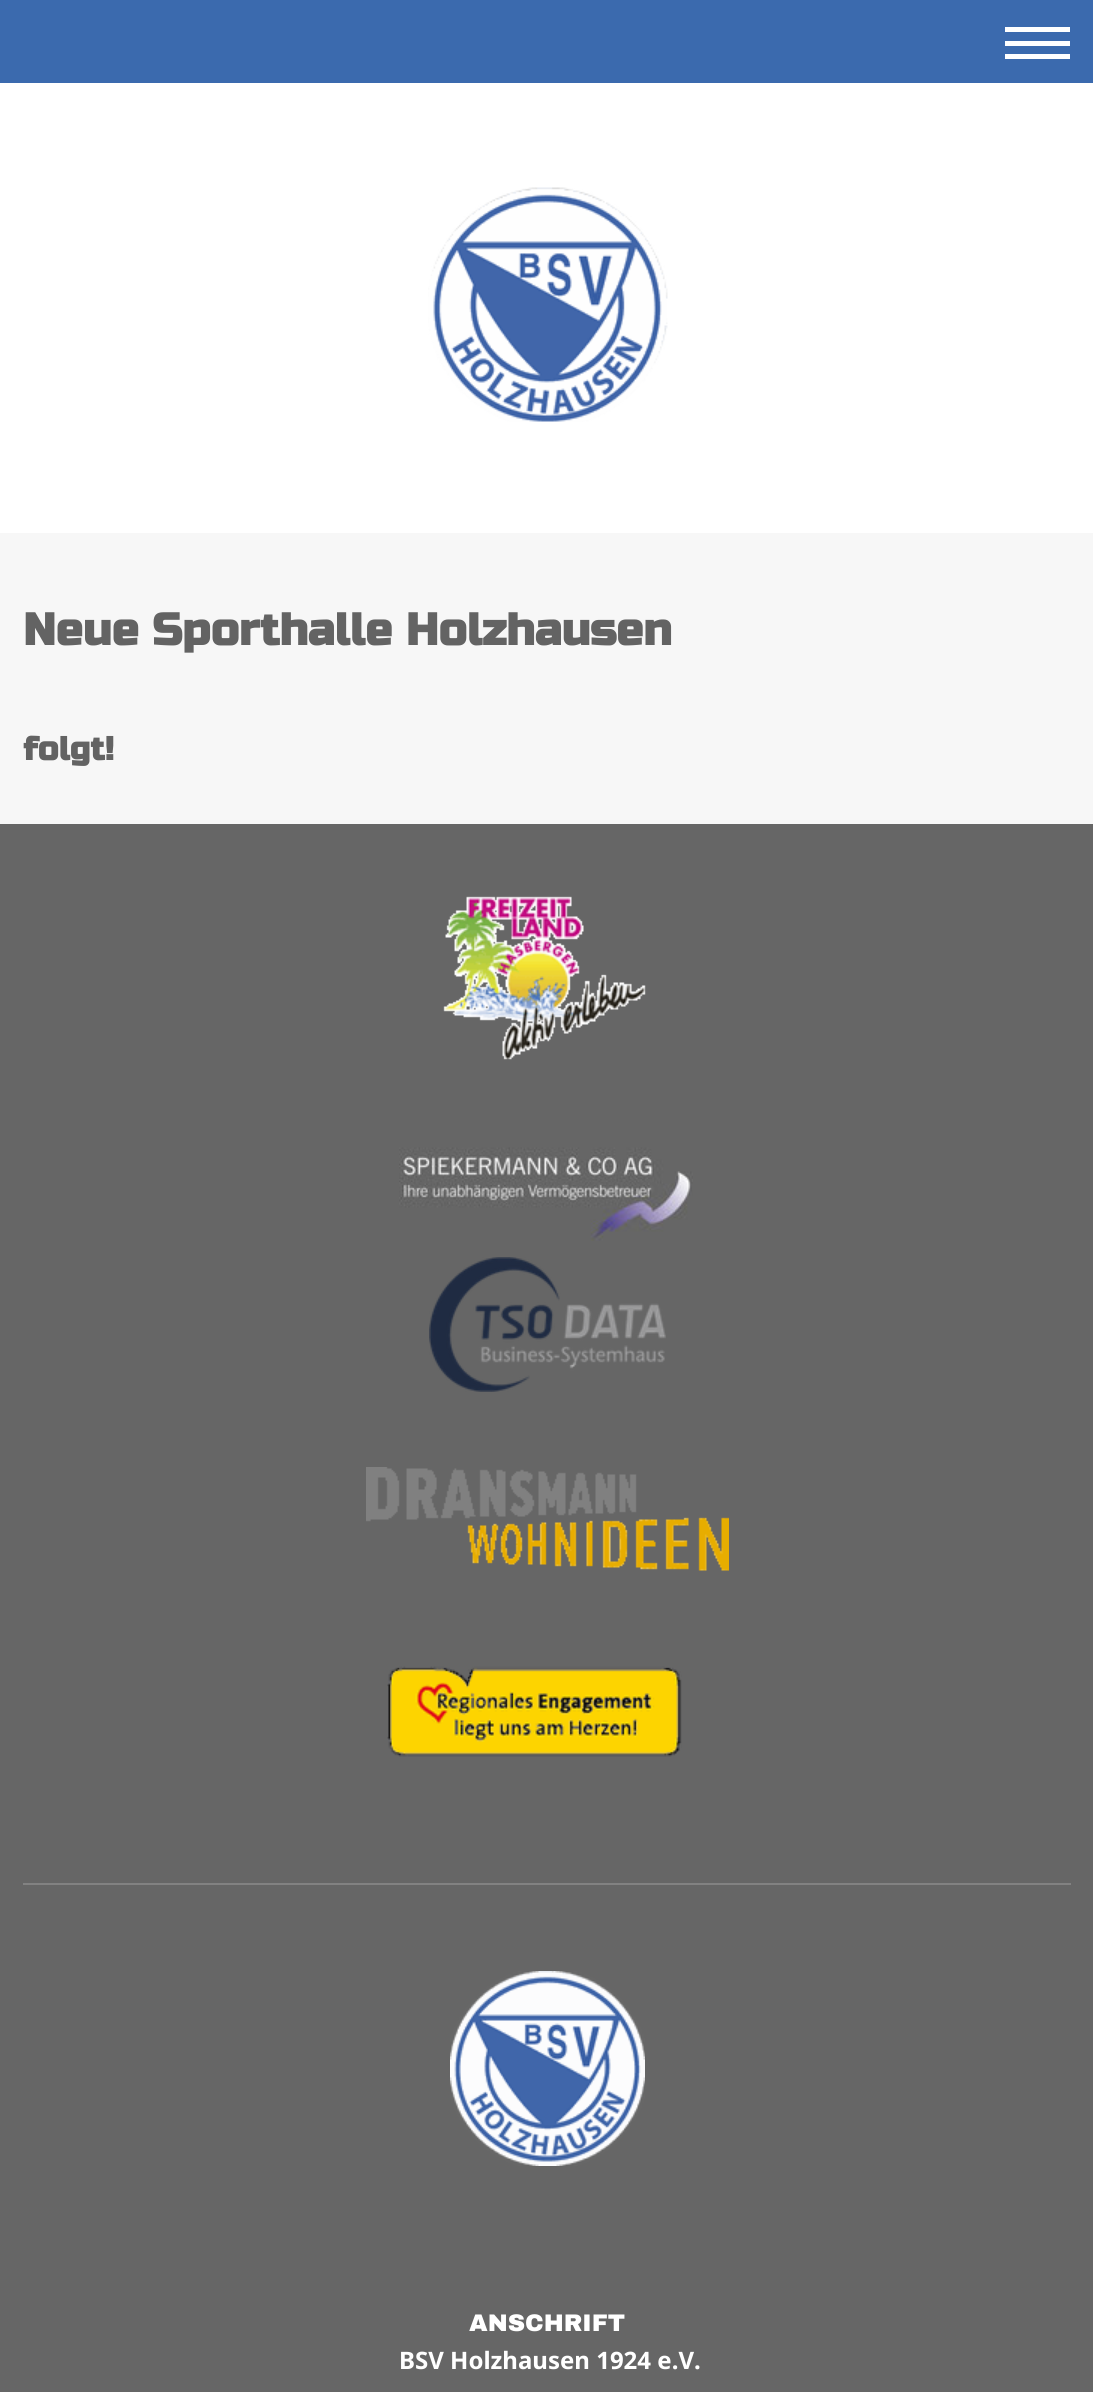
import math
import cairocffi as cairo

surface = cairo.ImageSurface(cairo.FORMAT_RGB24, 1093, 2392)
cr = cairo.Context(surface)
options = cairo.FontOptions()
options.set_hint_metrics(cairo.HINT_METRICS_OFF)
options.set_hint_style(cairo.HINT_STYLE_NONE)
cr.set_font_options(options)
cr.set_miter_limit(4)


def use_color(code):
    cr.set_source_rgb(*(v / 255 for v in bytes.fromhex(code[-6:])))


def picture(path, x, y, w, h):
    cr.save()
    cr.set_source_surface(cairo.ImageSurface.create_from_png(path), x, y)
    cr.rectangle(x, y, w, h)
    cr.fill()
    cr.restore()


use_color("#ffffff")
cr.paint()
use_color("#3b6aae")
cr.rectangle(0, 0, 1093, 83)
cr.fill()
use_color("#ffffff")
cr.rectangle(1005, 41, 65, 5)
cr.fill()
cr.rectangle(1005, 27, 65, 5)
cr.fill()
cr.rectangle(1005, 54, 65, 5)
cr.fill()
picture("img1.png", 428, 187, 240, 235)
use_color("#f7f7f7")
cr.rectangle(0, 533, 1093, 291)
cr.fill()
cr.select_font_face("Russo One", cairo.FONT_SLANT_NORMAL, cairo.FONT_WEIGHT_BOLD)
cr.set_font_size(45)
use_color("#636363")
cr.move_to(23, 645)
cr.show_text("Neue Sporthalle Holzhausen")
cr.set_font_size(33)
cr.move_to(23, 760)
cr.show_text("folgt!")
use_color("#666666")
cr.rectangle(0, 824, 1093, 1568)
cr.fill()
picture("img2.png", 443, 896, 203, 164)
picture("img3.png", 399, 1147, 294, 94)
picture("img4.png", 429, 1257, 237, 135)
picture("img5.png", 366, 1467, 363, 104)
picture("img6.png", 387, 1666, 295, 91)
use_color("#828282")
cr.rectangle(23, 1883, 1048, 2)
cr.fill()
picture("img7.png", 450, 1971, 195, 195)
cr.select_font_face("Archivo Black Black")
cr.set_font_size(24)
use_color("#ffffff")
cr.move_to(469, 2331)
cr.show_text("ANSCHRIFT")
cr.select_font_face("Noto Sans", cairo.FONT_SLANT_NORMAL, cairo.FONT_WEIGHT_BOLD)
cr.move_to(399, 2369)
cr.show_text("BSV Holzhausen 1924 e.V.")
surface.write_to_png("result.png")
